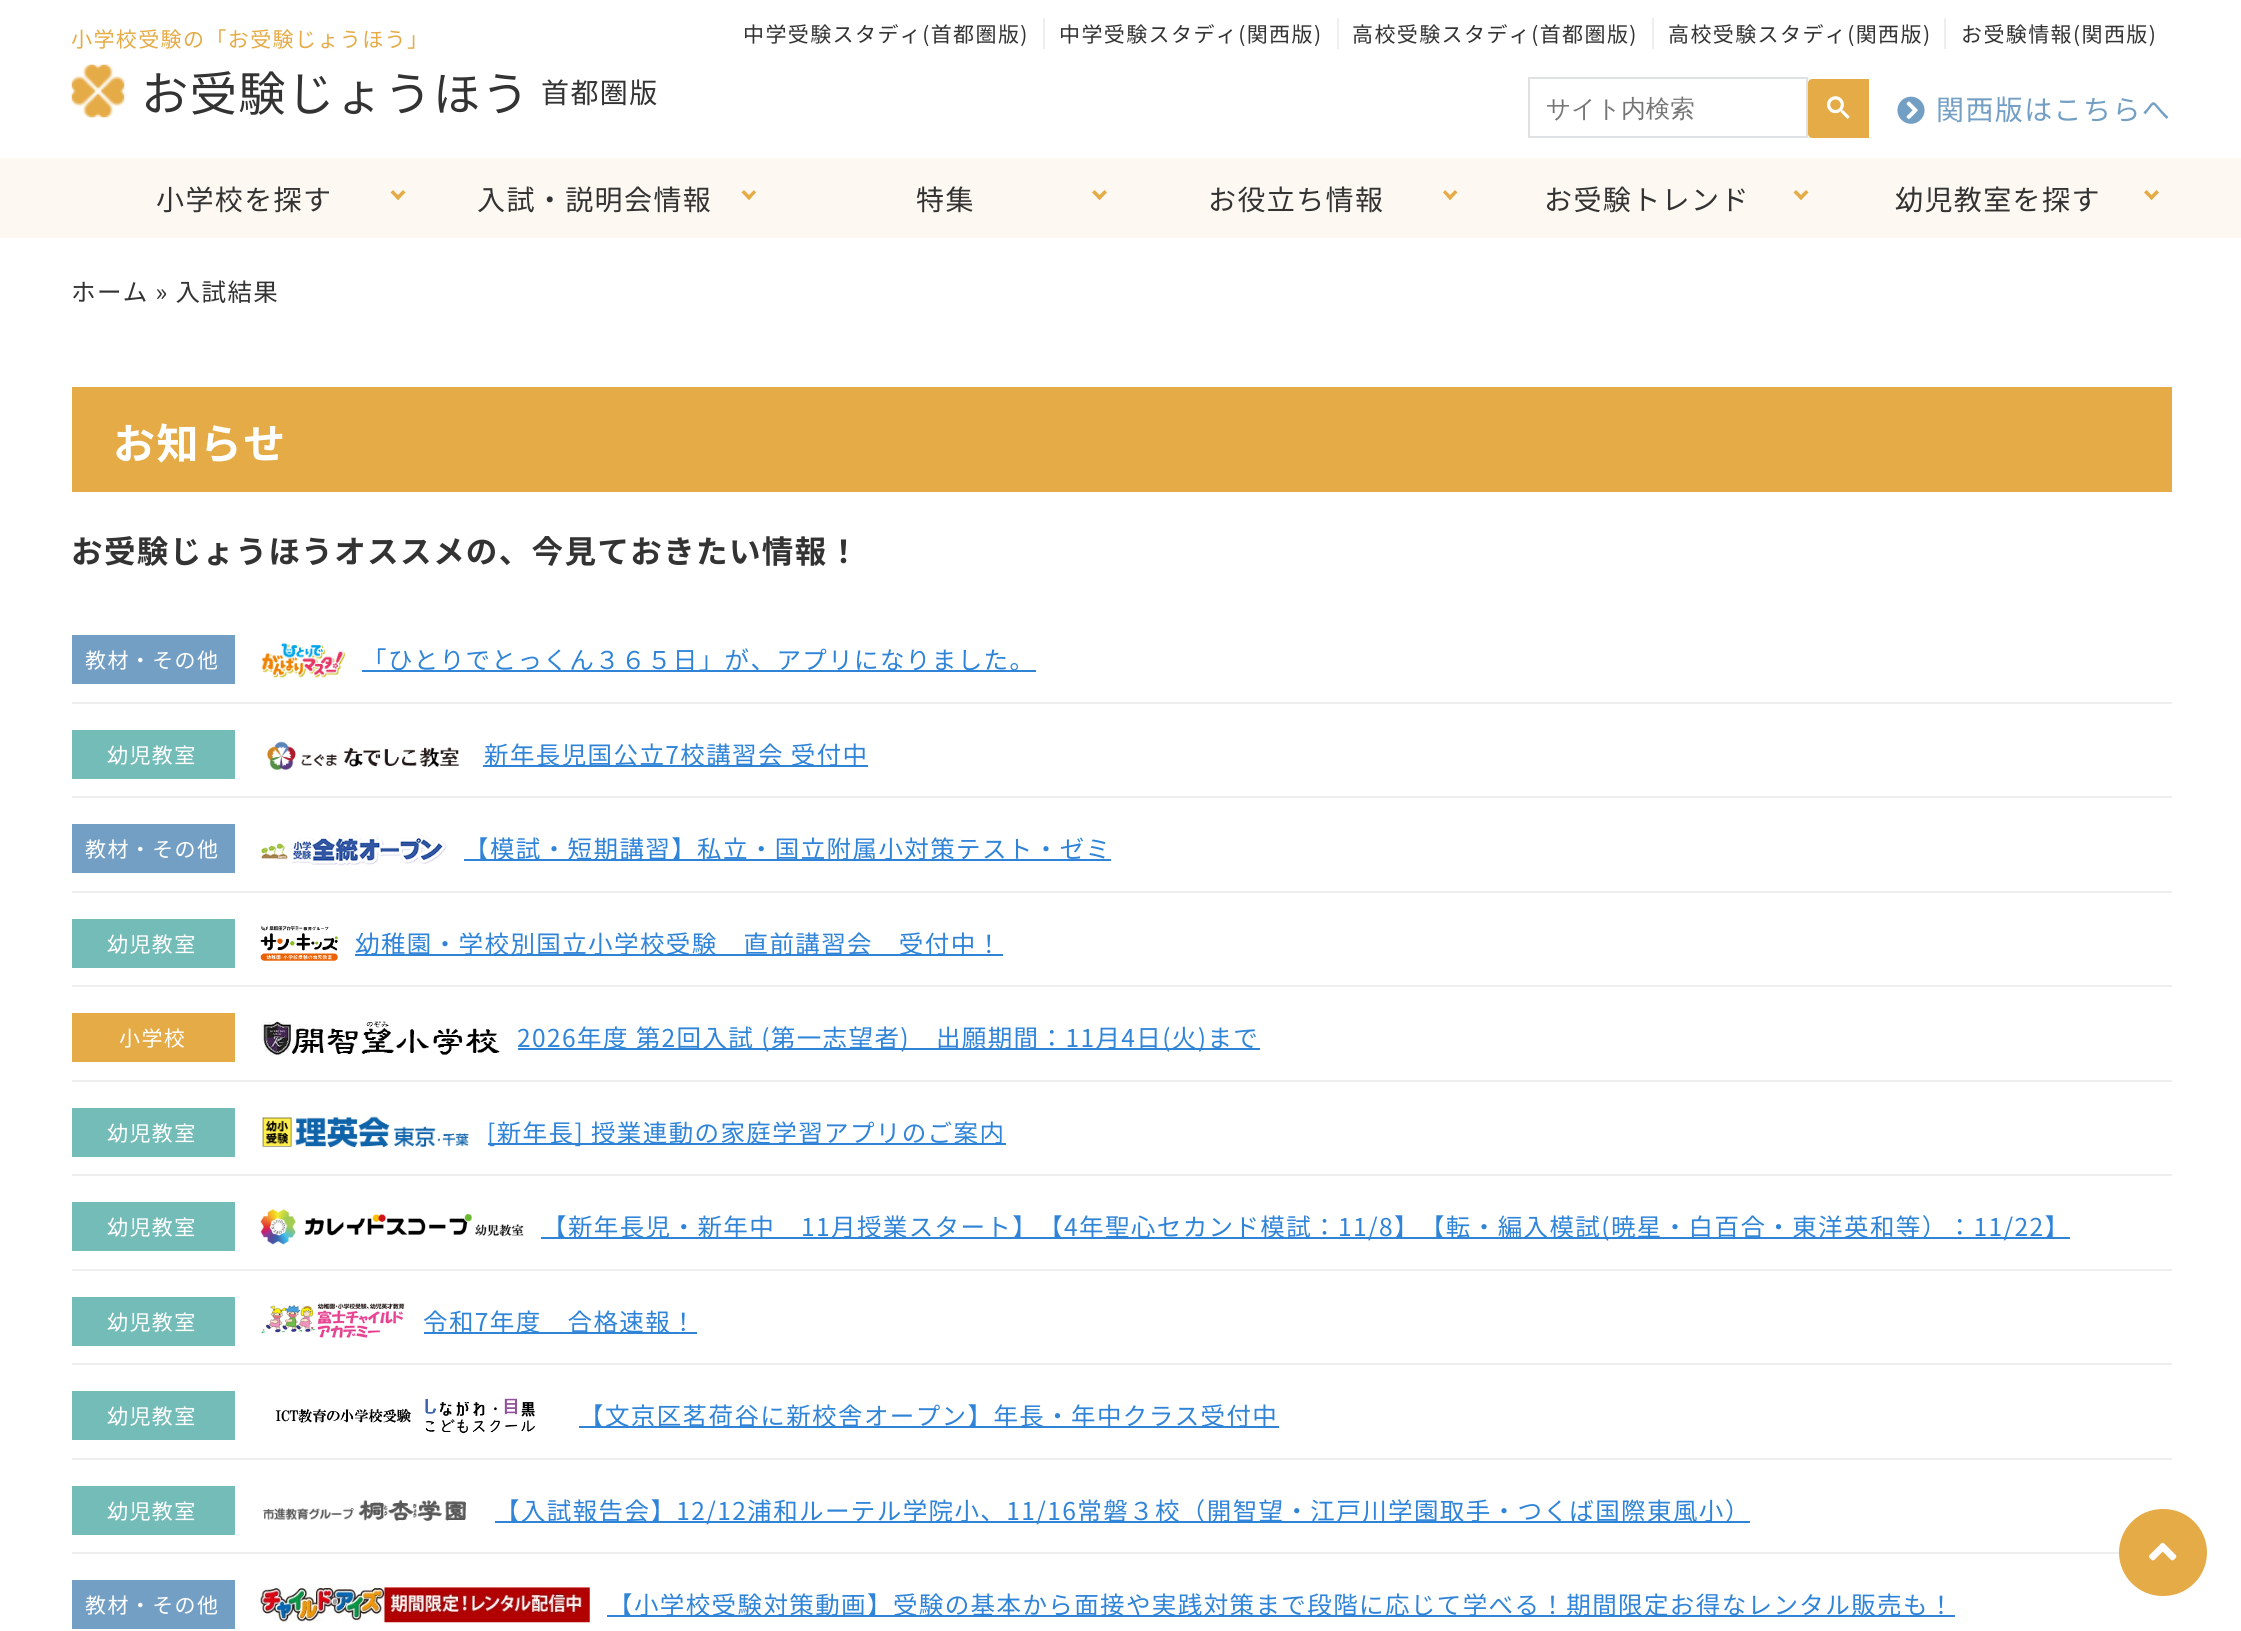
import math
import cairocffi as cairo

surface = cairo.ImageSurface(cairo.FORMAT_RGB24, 2241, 1631)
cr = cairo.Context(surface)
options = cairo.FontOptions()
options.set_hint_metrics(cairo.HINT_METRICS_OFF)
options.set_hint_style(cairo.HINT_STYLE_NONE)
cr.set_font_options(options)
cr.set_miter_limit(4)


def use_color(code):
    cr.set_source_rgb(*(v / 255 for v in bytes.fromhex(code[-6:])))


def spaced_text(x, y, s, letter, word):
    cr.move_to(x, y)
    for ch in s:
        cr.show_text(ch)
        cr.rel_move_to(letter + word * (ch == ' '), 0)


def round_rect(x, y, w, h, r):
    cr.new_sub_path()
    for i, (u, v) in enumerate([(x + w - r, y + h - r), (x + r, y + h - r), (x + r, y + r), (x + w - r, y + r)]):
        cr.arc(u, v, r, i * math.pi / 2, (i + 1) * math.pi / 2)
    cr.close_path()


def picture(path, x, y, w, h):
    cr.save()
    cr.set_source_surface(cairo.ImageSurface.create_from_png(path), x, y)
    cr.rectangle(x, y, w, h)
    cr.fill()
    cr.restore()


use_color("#ffffff")
cr.paint()
cr.select_font_face("Noto Sans JP")
cr.set_font_size(21)
use_color("#e5ab47")
spaced_text(71, 47, "小学校受験の「お受験じょうほう」", 1.4, 0)
picture("img1.png", 71, 64, 54, 54)
cr.set_font_size(47.25)
use_color("#333333")
spaced_text(141, 111, "お受験じょうほう", 1.4, 0)
cr.set_font_size(28)
spaced_text(541, 103, "首都圏版", 1.4, 0)
use_color("#eeeeee")
cr.rectangle(1043, 18, 2, 31)
cr.fill()
cr.set_font_size(21)
use_color("#333333")
spaced_text(743, 42, "中学受験スタディ(首都圏版)", 1.4, 0)
use_color("#eeeeee")
cr.rectangle(1337, 18, 2, 31)
cr.fill()
use_color("#333333")
spaced_text(1059, 42, "中学受験スタディ(関西版)", 1.4, 0)
use_color("#eeeeee")
cr.rectangle(1652, 18, 2, 31)
cr.fill()
use_color("#333333")
spaced_text(1352, 42, "高校受験スタディ(首都圏版)", 1.4, 0)
use_color("#eeeeee")
cr.rectangle(1944, 18, 2, 31)
cr.fill()
use_color("#333333")
spaced_text(1668, 42, "高校受験スタディ(関西版)", 1.4, 0)
spaced_text(1961, 42, "お受験情報(関西版)", 1.4, 0)
cr.rectangle(1529, 78, 278, 59)
use_color("#dfe1e5")
cr.stroke()
cr.select_font_face("WenQuanYi Zen Hei Medium")
cr.set_font_size(24.5)
use_color("#757575")
cr.move_to(1546, 117)
cr.show_text("サイト内検索")
use_color("#e5ab47")
cr.new_path()
cr.move_to(1812, 80)
cr.line_to(1868, 80)
cr.line_to(1868, 137)
cr.line_to(1812, 137)
cr.curve_to(1810.5, 137, 1809, 135.5, 1809, 134)
cr.line_to(1809, 83)
cr.curve_to(1809, 81.5, 1810.5, 80, 1812, 80)
cr.close_path()
cr.fill_preserve()
cr.stroke()
picture("img2.png", 1827, 96, 23, 23)
picture("img3.png", 1897, 96, 28, 28)
cr.select_font_face("Noto Sans JP")
cr.set_font_size(28)
use_color("#749fc5")
spaced_text(1936, 120, "関西版はこちらへ", 1.4, 0)
use_color("#fdf8f1")
cr.rectangle(0, 158, 2241, 80)
cr.fill()
use_color("#333333")
spaced_text(156, 210, "小学校を探す", 1.4, 0)
use_color("#e5ab47")
cr.new_path()
cr.move_to(405.5, 192.5)
cr.line_to(398, 200)
cr.line_to(395.5, 197.5)
cr.line_to(403, 190)
cr.close_path()
cr.fill()
cr.new_path()
cr.move_to(400.5, 197.5)
cr.line_to(398, 200)
cr.line_to(390.5, 192.5)
cr.line_to(393, 190)
cr.close_path()
cr.fill()
use_color("#333333")
spaced_text(477, 210, "入試・説明会情報", 1.4, 0)
use_color("#e5ab47")
cr.new_path()
cr.move_to(756, 192.5)
cr.line_to(749, 200)
cr.line_to(746.5, 197.5)
cr.line_to(754, 190)
cr.close_path()
cr.fill()
cr.new_path()
cr.move_to(751.5, 197.5)
cr.line_to(749, 200)
cr.line_to(741.5, 192.5)
cr.line_to(744, 190)
cr.close_path()
cr.fill()
use_color("#333333")
spaced_text(916, 210, "特集", 1.4, 0)
use_color("#e5ab47")
cr.new_path()
cr.move_to(1107, 192.5)
cr.line_to(1099.5, 200)
cr.line_to(1097, 197.5)
cr.line_to(1104.5, 190)
cr.close_path()
cr.fill()
cr.new_path()
cr.move_to(1102, 197.5)
cr.line_to(1099.5, 200)
cr.line_to(1092, 192.5)
cr.line_to(1094.5, 190)
cr.close_path()
cr.fill()
use_color("#333333")
spaced_text(1208, 210, "お役立ち情報", 1.4, 0)
use_color("#e5ab47")
cr.new_path()
cr.move_to(1457.5, 192.5)
cr.line_to(1450, 200)
cr.line_to(1447.5, 197.5)
cr.line_to(1455, 190)
cr.close_path()
cr.fill()
cr.new_path()
cr.move_to(1452.5, 197.5)
cr.line_to(1450, 200)
cr.line_to(1443, 192.5)
cr.line_to(1445, 190)
cr.close_path()
cr.fill()
use_color("#333333")
spaced_text(1544, 210, "お受験トレンド", 1.4, 0)
use_color("#e5ab47")
cr.new_path()
cr.move_to(1808.5, 192.5)
cr.line_to(1801, 200)
cr.line_to(1798.5, 197.5)
cr.line_to(1806, 190)
cr.close_path()
cr.fill()
cr.new_path()
cr.move_to(1803.5, 197.5)
cr.line_to(1801, 200)
cr.line_to(1793.5, 192.5)
cr.line_to(1796, 190)
cr.close_path()
cr.fill()
use_color("#333333")
spaced_text(1895, 210, "幼児教室を探す", 1.4, 0)
use_color("#e5ab47")
cr.new_path()
cr.move_to(2159, 192.5)
cr.line_to(2151.5, 200)
cr.line_to(2149, 197.5)
cr.line_to(2156.5, 190)
cr.close_path()
cr.fill()
cr.new_path()
cr.move_to(2154, 197.5)
cr.line_to(2151.5, 200)
cr.line_to(2144, 192.5)
cr.line_to(2146.5, 190)
cr.close_path()
cr.fill()
cr.set_font_size(24.5)
use_color("#333333")
spaced_text(71, 301, "ホーム » 入試結果", 1.4, 0)
use_color("#e5ab47")
cr.rectangle(72, 387, 2100, 105)
cr.fill()
cr.select_font_face("Noto Sans JP", cairo.FONT_SLANT_NORMAL, cairo.FONT_WEIGHT_BOLD)
cr.set_font_size(42)
use_color("#ffffff")
spaced_text(113, 459, "お知らせ", 1.4, 0)
cr.set_font_size(31.5)
use_color("#333333")
spaced_text(71, 563, "お受験じょうほうオススメの、今見ておきたい情報！", 1.4, 0)
use_color("#eeeeee")
cr.rectangle(72, 702, 2100, 2)
cr.fill()
use_color("#749fc5")
cr.rectangle(72, 635, 163, 49)
cr.fill()
cr.select_font_face("Noto Sans JP")
cr.set_font_size(21)
use_color("#ffffff")
spaced_text(85, 668, "教材・その他", 1.4, 0)
picture("img4.png", 261, 643, 84, 35)
use_color("#3084d8")
cr.rectangle(362, 670, 674, 2)
cr.fill()
cr.set_font_size(24.5)
spaced_text(362, 669, "「ひとりでとっくん３６５日」が、アプリになりました。", 1.4, 0)
use_color("#eeeeee")
cr.rectangle(72, 796, 2100, 2)
cr.fill()
use_color("#74bcb8")
cr.rectangle(72, 730, 163, 49)
cr.fill()
cr.set_font_size(21)
use_color("#ffffff")
spaced_text(107, 763, "幼児教室", 1.4, 0)
picture("img5.png", 267, 741, 192, 30)
use_color("#3084d8")
cr.rectangle(483, 765, 385, 2)
cr.fill()
cr.set_font_size(24.5)
spaced_text(484, 764, "新年長児国公立7校講習会 受付中", 1.4, 0)
use_color("#eeeeee")
cr.rectangle(72, 891, 2100, 2)
cr.fill()
use_color("#749fc5")
cr.rectangle(72, 824, 163, 49)
cr.fill()
cr.set_font_size(21)
use_color("#ffffff")
spaced_text(85, 857, "教材・その他", 1.4, 0)
picture("img6.png", 261, 835, 186, 31)
use_color("#3084d8")
cr.rectangle(464, 859, 647, 2)
cr.fill()
cr.set_font_size(24.5)
spaced_text(464, 858, "【模試・短期講習】私立・国立附属小対策テスト・ゼミ", 1.4, 0)
use_color("#eeeeee")
cr.rectangle(72, 985, 2100, 2)
cr.fill()
use_color("#74bcb8")
cr.rectangle(72, 919, 163, 49)
cr.fill()
cr.set_font_size(21)
use_color("#ffffff")
spaced_text(107, 952, "幼児教室", 1.4, 0)
picture("img7.png", 260, 926, 78, 35)
use_color("#3084d8")
cr.rectangle(355, 954, 648, 2)
cr.fill()
cr.set_font_size(24.5)
spaced_text(355, 953, "幼稚園・学校別国立小学校受験　直前講習会　受付中！", 1.4, 0)
use_color("#eeeeee")
cr.rectangle(72, 1080, 2100, 2)
cr.fill()
use_color("#e5ab47")
cr.rectangle(72, 1013, 163, 49)
cr.fill()
cr.set_font_size(21)
use_color("#ffffff")
spaced_text(119, 1046, "小学校", 1.4, 0)
picture("img8.png", 261, 1021, 239, 35)
use_color("#3084d8")
cr.rectangle(518, 1048, 742, 2)
cr.fill()
cr.set_font_size(24.5)
spaced_text(517, 1047, "2026年度 第2回入試 (第一志望者)　出願期間：11月4日(火)まで", 1.4, 0)
use_color("#eeeeee")
cr.rectangle(72, 1174, 2100, 2)
cr.fill()
use_color("#74bcb8")
cr.rectangle(72, 1108, 163, 49)
cr.fill()
cr.set_font_size(21)
use_color("#ffffff")
spaced_text(107, 1141, "幼児教室", 1.4, 0)
picture("img9.png", 262, 1116, 207, 32)
use_color("#3084d8")
cr.rectangle(488, 1143, 518, 2)
cr.fill()
cr.set_font_size(24.5)
spaced_text(487, 1142, "[新年長] 授業連動の家庭学習アプリのご案内", 1.4, 0)
use_color("#eeeeee")
cr.rectangle(72, 1269, 2100, 2)
cr.fill()
use_color("#74bcb8")
cr.rectangle(72, 1202, 163, 49)
cr.fill()
cr.set_font_size(21)
use_color("#ffffff")
spaced_text(107, 1235, "幼児教室", 1.4, 0)
picture("img10.png", 260, 1209, 264, 36)
use_color("#3084d8")
cr.rectangle(541, 1237, 1529, 2)
cr.fill()
cr.set_font_size(24.5)
spaced_text(542, 1236, "【新年長児・新年中　11月授業スタート】【4年聖心セカンド模試：11/8】【転・編入模試(暁星・白百合・東洋英和等）：11/22】", 1.4, 0)
use_color("#eeeeee")
cr.rectangle(72, 1363, 2100, 2)
cr.fill()
use_color("#74bcb8")
cr.rectangle(72, 1297, 163, 49)
cr.fill()
cr.set_font_size(21)
use_color("#ffffff")
spaced_text(107, 1330, "幼児教室", 1.4, 0)
picture("img11.png", 261, 1303, 144, 35)
use_color("#3084d8")
cr.rectangle(424, 1332, 273, 2)
cr.fill()
cr.set_font_size(24.5)
spaced_text(423, 1331, "令和7年度　合格速報！", 1.4, 0)
use_color("#eeeeee")
cr.rectangle(72, 1458, 2100, 2)
cr.fill()
use_color("#74bcb8")
cr.rectangle(72, 1391, 163, 49)
cr.fill()
cr.set_font_size(21)
use_color("#ffffff")
spaced_text(107, 1424, "幼児教室", 1.4, 0)
picture("img12.png", 275, 1398, 260, 36)
use_color("#3084d8")
cr.rectangle(579, 1426, 700, 2)
cr.fill()
cr.set_font_size(24.5)
spaced_text(579, 1425, "【文京区茗荷谷に新校舎オープン】年長・年中クラス受付中", 1.4, 0)
use_color("#eeeeee")
cr.rectangle(72, 1552, 2048, 2)
cr.fill()
use_color("#74bcb8")
cr.rectangle(72, 1486, 163, 49)
cr.fill()
cr.set_font_size(21)
use_color("#ffffff")
spaced_text(107, 1519, "幼児教室", 1.4, 0)
picture("img13.png", 263, 1499, 203, 22)
use_color("#3084d8")
cr.rectangle(495, 1521, 1255, 2)
cr.fill()
cr.set_font_size(24.5)
spaced_text(495, 1520, "【入試報告会】12/12浦和ルーテル学院小、11/16常磐３校（開智望・江戸川学園取手・つくば国際東風小）", 1.4, 0)
use_color("#749fc5")
cr.rectangle(72, 1580, 163, 49)
cr.fill()
cr.set_font_size(21)
use_color("#ffffff")
spaced_text(85, 1613, "教材・その他", 1.4, 0)
picture("img14.png", 260, 1587, 330, 36)
use_color("#3084d8")
cr.rectangle(607, 1615, 1348, 2)
cr.fill()
cr.set_font_size(24.5)
spaced_text(608, 1614, "【小学校受験対策動画】受験の基本から面接や実践対策まで段階に応じて学べる！期間限定お得なレンタル販売も！", 1.4, 0)
use_color("#e5ab47")
round_rect(2119, 1509, 88, 87, 43.5)
cr.fill()
picture("img15.png", 2149, 1542, 28, 19)
surface.write_to_png("result.png")
